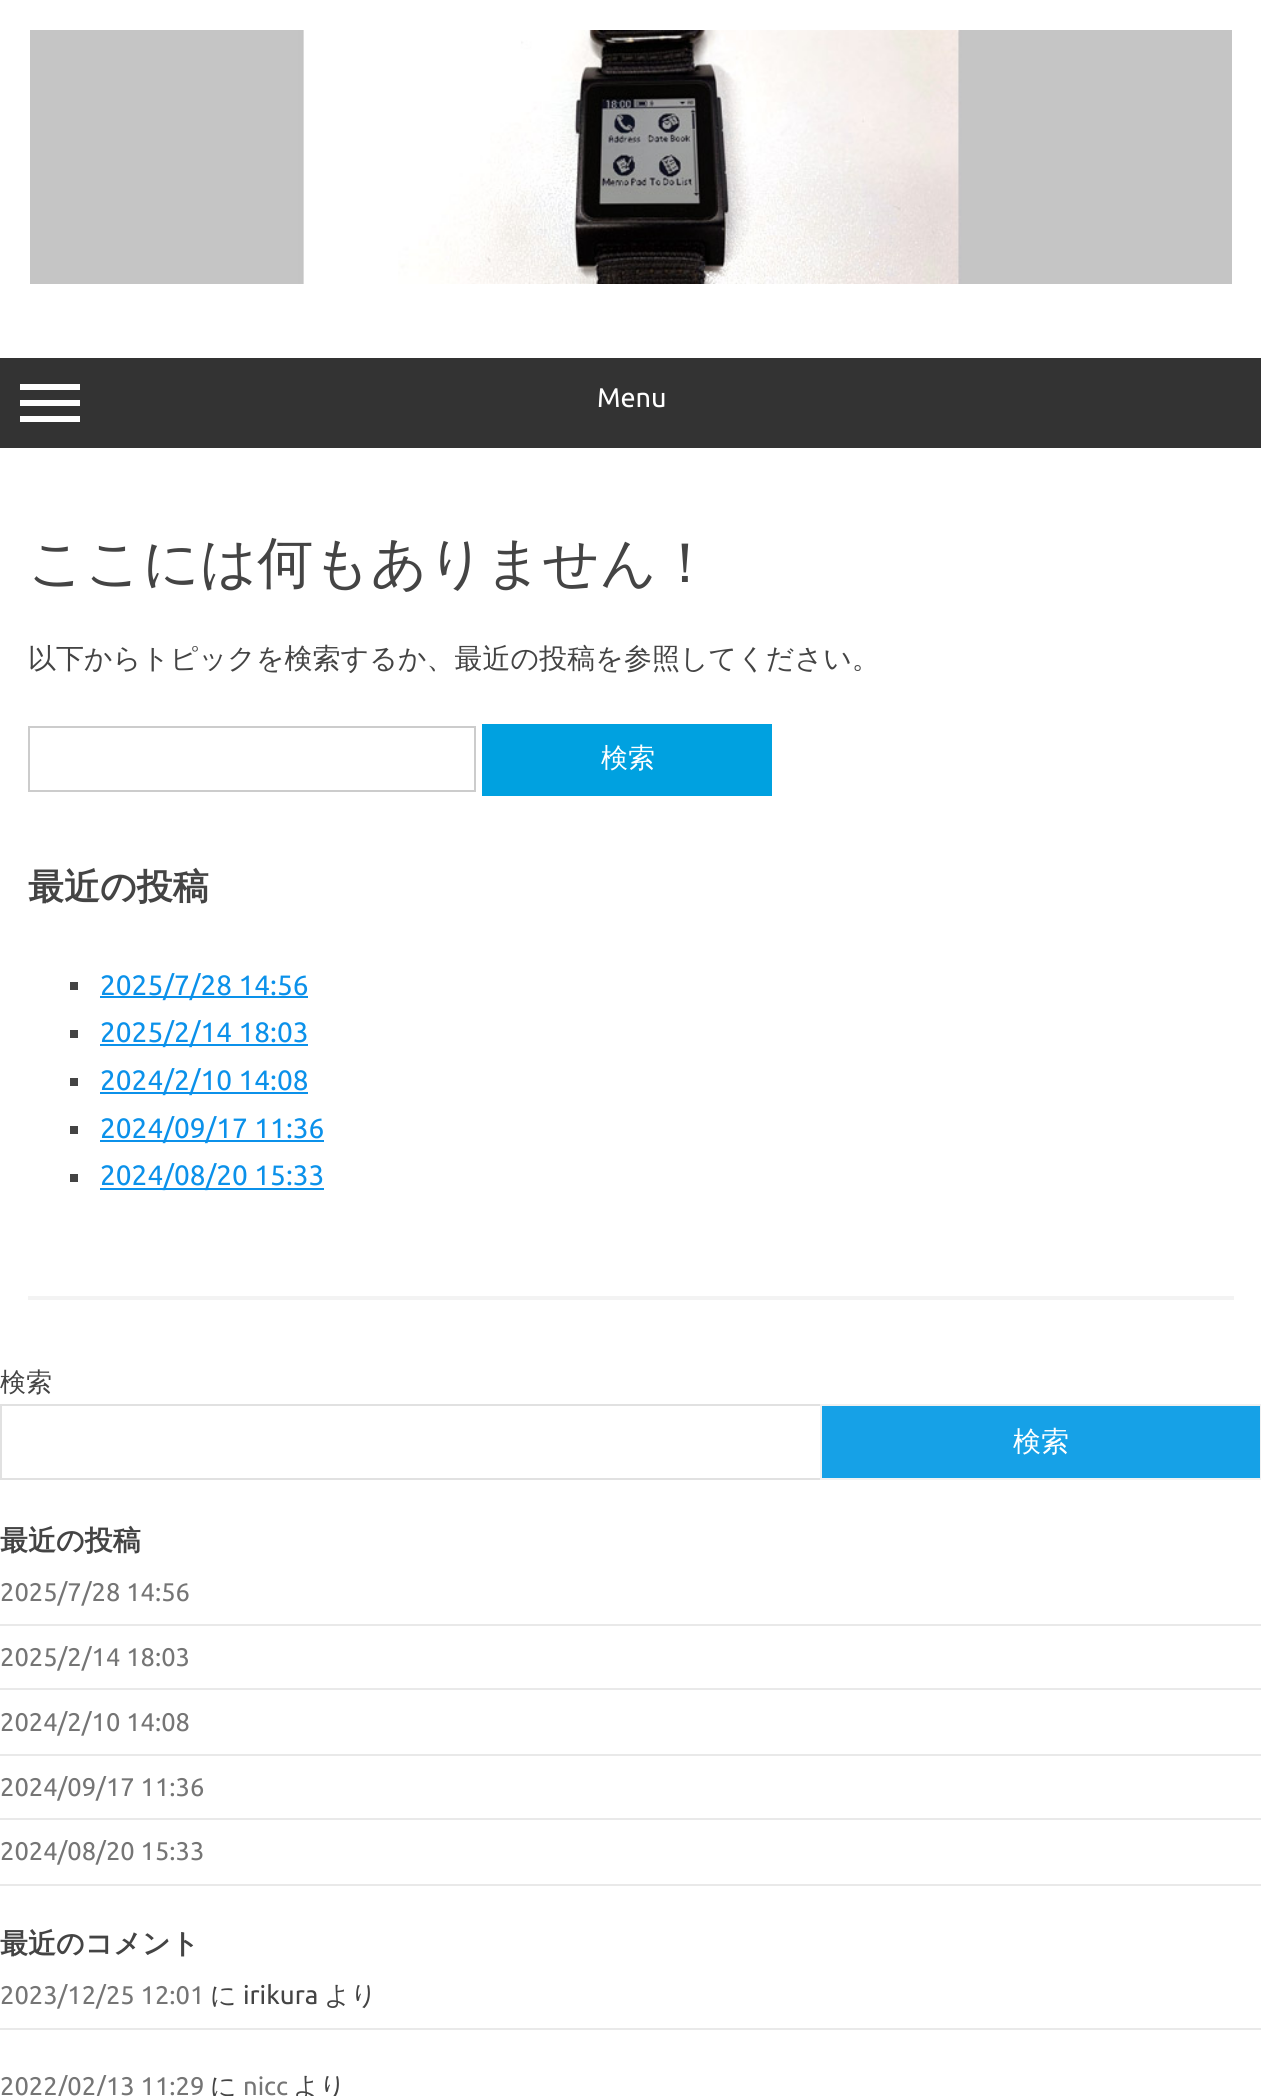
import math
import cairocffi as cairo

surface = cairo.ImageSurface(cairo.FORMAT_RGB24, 1261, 2096)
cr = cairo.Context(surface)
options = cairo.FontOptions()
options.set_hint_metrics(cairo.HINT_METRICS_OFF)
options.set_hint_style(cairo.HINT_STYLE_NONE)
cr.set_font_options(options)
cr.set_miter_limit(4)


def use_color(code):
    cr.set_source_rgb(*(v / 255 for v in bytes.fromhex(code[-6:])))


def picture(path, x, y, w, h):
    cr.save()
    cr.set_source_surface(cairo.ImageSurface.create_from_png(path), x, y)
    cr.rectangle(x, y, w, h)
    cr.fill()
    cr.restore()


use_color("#ffffff")
cr.paint()
picture("img1.png", 30, 30, 1202, 254)
use_color("#333333")
cr.rectangle(0, 358, 1261, 90)
cr.fill()
use_color("#ffffff")
cr.rectangle(20, 384, 60, 6)
cr.fill()
cr.rectangle(20, 400, 60, 6)
cr.fill()
cr.rectangle(20, 416, 60, 6)
cr.fill()
cr.select_font_face("Ubuntu")
cr.set_font_size(27)
cr.move_to(597, 407)
cr.show_text("Menu")
use_color("#f3f3f3")
cr.rectangle(28, 1296, 1206, 4)
cr.fill()
cr.select_font_face("WenQuanYi Zen Hei Medium")
cr.set_font_size(56)
use_color("#444444")
cr.move_to(28, 582)
cr.show_text("ここには何もありません！")
cr.set_font_size(28)
cr.move_to(28, 668)
cr.show_text("以下からトピックを検索するか、最近の投稿を参照してください。")
cr.rectangle(29, 727, 446, 64)
use_color("#cccccc")
cr.stroke()
use_color("#00a1e0")
cr.rectangle(482, 724, 290, 72)
cr.fill()
cr.set_font_size(27)
use_color("#ffffff")
cr.move_to(601, 767)
cr.show_text("検索")
cr.select_font_face("WenQuanYi Zen Hei", cairo.FONT_SLANT_NORMAL, cairo.FONT_WEIGHT_BOLD)
cr.set_font_size(36)
use_color("#444444")
cr.move_to(28, 899)
cr.show_text("最近の投稿")
cr.rectangle(70, 982, 8, 8)
cr.fill()
use_color("#0b91ea")
cr.rectangle(100, 996, 208, 2)
cr.fill()
cr.select_font_face("Ubuntu")
cr.set_font_size(28)
cr.move_to(100, 995)
cr.show_text("2025/7/28 14:56")
use_color("#444444")
cr.rectangle(70, 1030, 8, 8)
cr.fill()
use_color("#0b91ea")
cr.rectangle(100, 1044, 208, 2)
cr.fill()
cr.move_to(100, 1042)
cr.show_text("2025/2/14 18:03")
use_color("#444444")
cr.rectangle(70, 1078, 8, 8)
cr.fill()
use_color("#0b91ea")
cr.rectangle(100, 1092, 208, 2)
cr.fill()
cr.move_to(100, 1090)
cr.show_text("2024/2/10 14:08")
use_color("#444444")
cr.rectangle(70, 1126, 8, 8)
cr.fill()
use_color("#0b91ea")
cr.rectangle(100, 1140, 224, 2)
cr.fill()
cr.move_to(100, 1138)
cr.show_text("2024/09/17 11:36")
use_color("#444444")
cr.rectangle(70, 1174, 8, 8)
cr.fill()
use_color("#0b91ea")
cr.rectangle(100, 1188, 224, 2)
cr.fill()
cr.move_to(100, 1185)
cr.show_text("2024/08/20 15:33")
cr.select_font_face("WenQuanYi Zen Hei Medium")
cr.set_font_size(26)
use_color("#444444")
cr.move_to(0, 1391)
cr.show_text("検索")
cr.rectangle(1, 1405, 822, 74)
use_color("#e1e1e1")
cr.stroke()
use_color("#16a1e7")
cr.rectangle(821, 1405, 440, 74)
cr.fill_preserve()
use_color("#f1f1f1")
cr.stroke()
cr.set_font_size(28)
use_color("#ffffff")
cr.move_to(1013, 1451)
cr.show_text("検索")
cr.select_font_face("WenQuanYi Zen Hei", cairo.FONT_SLANT_NORMAL, cairo.FONT_WEIGHT_BOLD)
use_color("#444444")
cr.move_to(0, 1550)
cr.show_text("最近の投稿")
use_color("#e9e9e9")
cr.rectangle(0, 1624, 1261, 2)
cr.fill()
cr.select_font_face("Ubuntu")
cr.set_font_size(25.5)
use_color("#757575")
cr.move_to(0, 1601)
cr.show_text("2025/7/28 14:56")
use_color("#e9e9e9")
cr.rectangle(0, 1688, 1261, 2)
cr.fill()
use_color("#757575")
cr.move_to(0, 1666)
cr.show_text("2025/2/14 18:03")
use_color("#e9e9e9")
cr.rectangle(0, 1754, 1261, 2)
cr.fill()
use_color("#757575")
cr.move_to(0, 1731)
cr.show_text("2024/2/10 14:08")
use_color("#e9e9e9")
cr.rectangle(0, 1818, 1261, 2)
cr.fill()
use_color("#757575")
cr.move_to(0, 1796)
cr.show_text("2024/09/17 11:36")
use_color("#e9e9e9")
cr.rectangle(0, 1884, 1261, 2)
cr.fill()
use_color("#757575")
cr.move_to(0, 1860)
cr.show_text("2024/08/20 15:33")
cr.select_font_face("WenQuanYi Zen Hei", cairo.FONT_SLANT_NORMAL, cairo.FONT_WEIGHT_BOLD)
cr.set_font_size(28)
use_color("#444444")
cr.move_to(0, 1953)
cr.show_text("最近のコメント")
use_color("#e9e9e9")
cr.rectangle(0, 2028, 1261, 2)
cr.fill()
cr.select_font_face("Ubuntu")
cr.set_font_size(25.5)
use_color("#757575")
cr.move_to(0, 2004)
cr.show_text("2023/12/25 12:01")
cr.select_font_face("WenQuanYi Zen Hei Medium")
cr.set_font_size(26)
use_color("#444444")
cr.move_to(210, 2004)
cr.show_text("に")
cr.select_font_face("Ubuntu")
cr.move_to(243, 2004)
cr.show_text("irikura")
cr.select_font_face("WenQuanYi Zen Hei Medium")
cr.move_to(324, 2004)
cr.show_text("より")
cr.select_font_face("Ubuntu")
cr.set_font_size(25.5)
use_color("#757575")
cr.move_to(0, 2095)
cr.show_text("2022/02/13 11:29")
cr.select_font_face("WenQuanYi Zen Hei Medium")
cr.set_font_size(26)
use_color("#444444")
cr.move_to(210, 2095)
cr.show_text("に")
cr.select_font_face("Ubuntu")
cr.set_font_size(25.5)
use_color("#757575")
cr.move_to(243, 2095)
cr.show_text("nicc")
cr.select_font_face("WenQuanYi Zen Hei Medium")
cr.set_font_size(26)
use_color("#444444")
cr.move_to(293, 2095)
cr.show_text("より")
surface.write_to_png("result.png")
